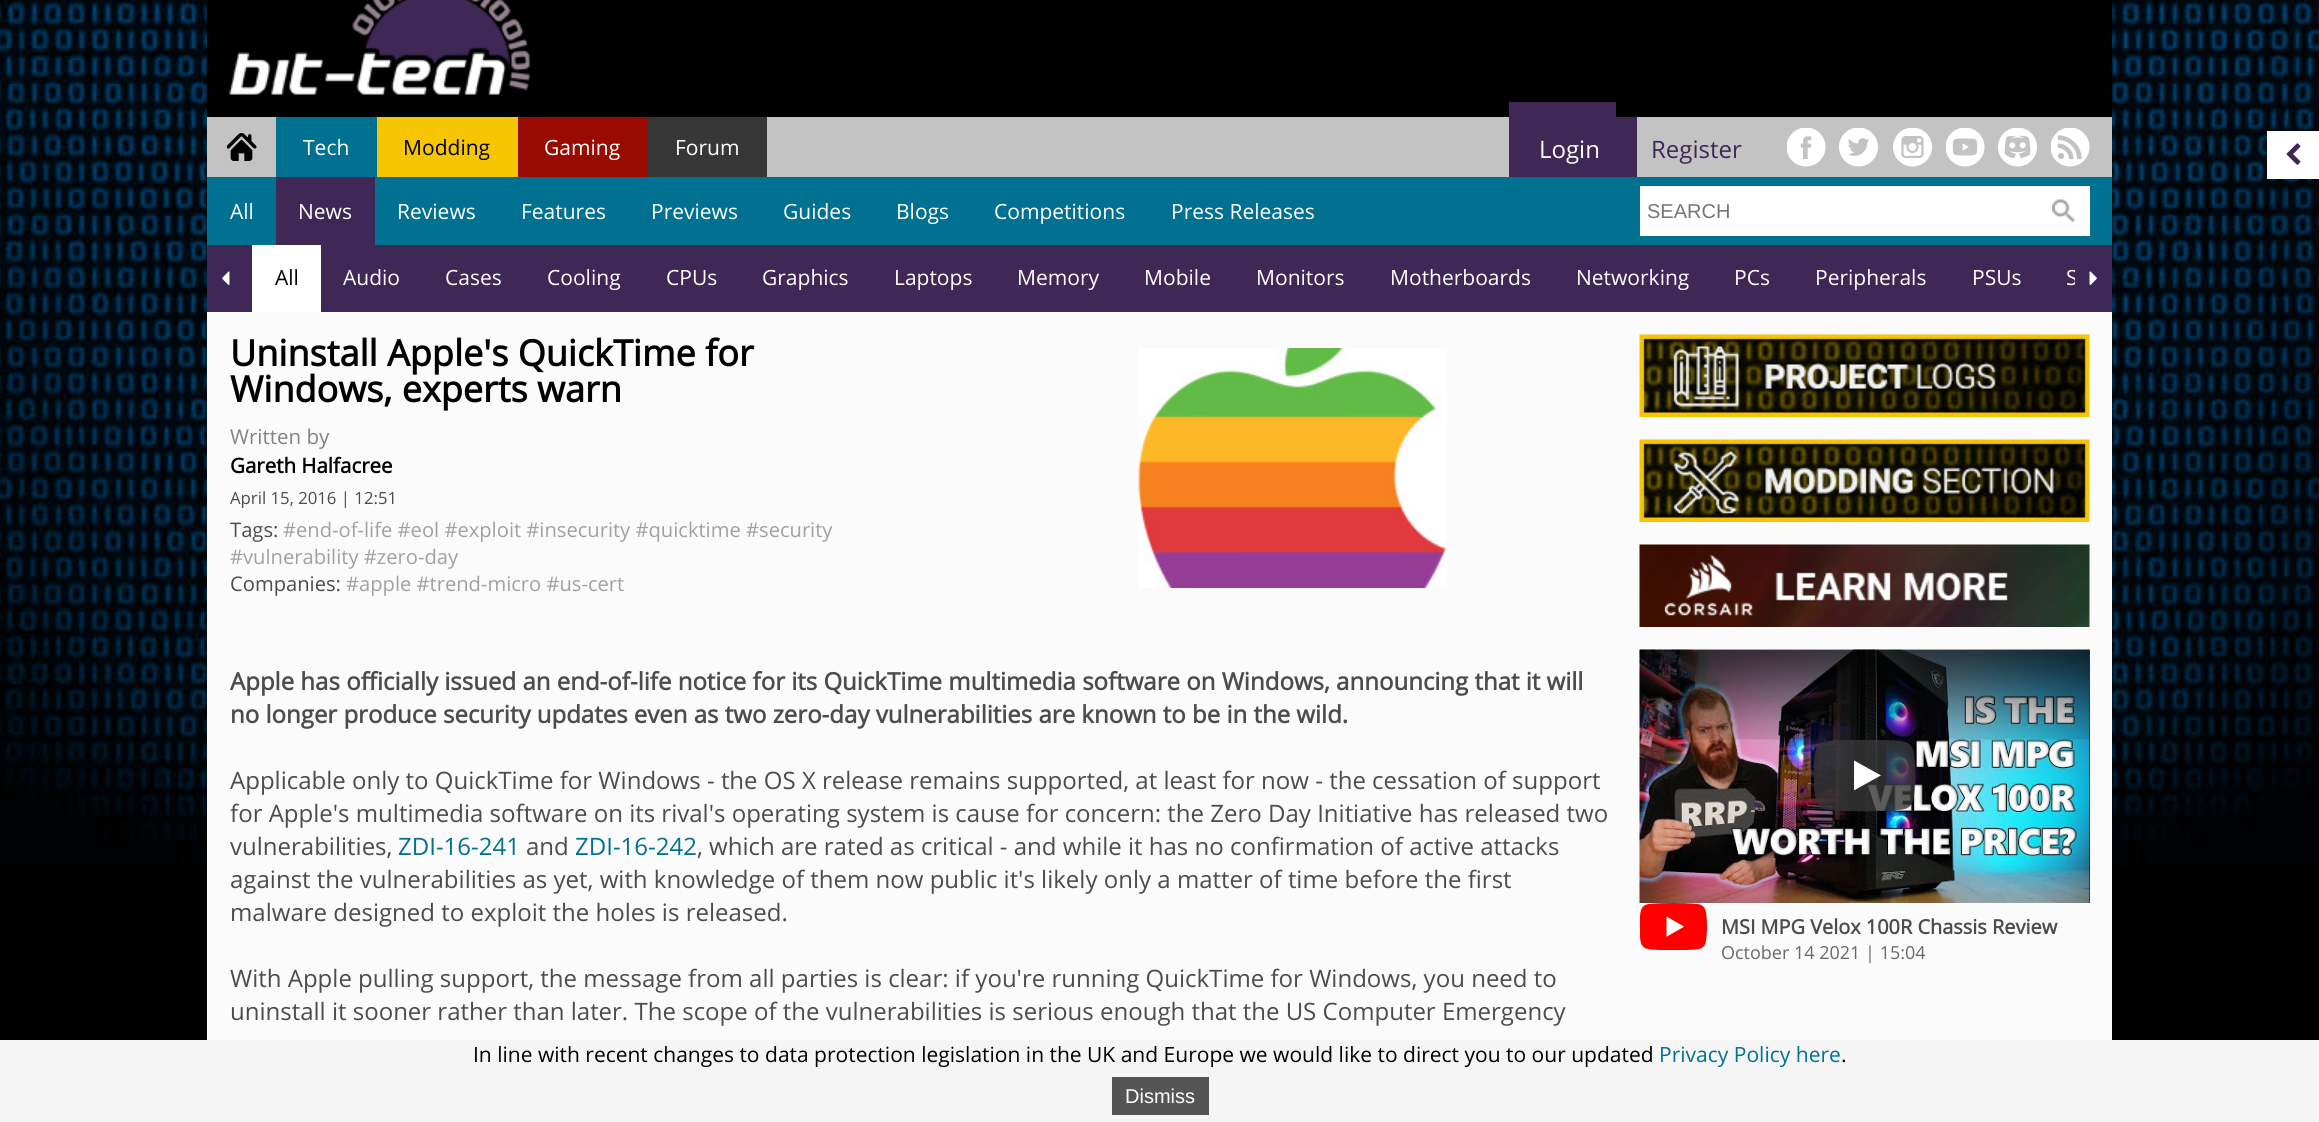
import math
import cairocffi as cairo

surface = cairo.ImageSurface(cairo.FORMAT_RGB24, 2319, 1122)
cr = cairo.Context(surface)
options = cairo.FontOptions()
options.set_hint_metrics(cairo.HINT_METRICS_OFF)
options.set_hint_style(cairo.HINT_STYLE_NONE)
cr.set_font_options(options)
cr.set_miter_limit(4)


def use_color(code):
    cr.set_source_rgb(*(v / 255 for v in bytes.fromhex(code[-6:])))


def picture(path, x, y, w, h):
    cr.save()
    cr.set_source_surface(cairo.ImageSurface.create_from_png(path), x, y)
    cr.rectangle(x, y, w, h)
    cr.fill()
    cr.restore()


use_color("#000000")
cr.paint()
picture("img1.png", 0, 0, 2319, 866)
use_color("#000000")
cr.rectangle(207, 0, 1905, 117)
cr.fill()
picture("img2.png", 229, 0, 301, 95)
use_color("#c3c3c3")
cr.rectangle(207, 117, 1905, 60)
cr.fill()
picture("img3.png", 227, 133, 30, 28)
use_color("#007191")
cr.rectangle(276, 117, 101, 60)
cr.fill()
cr.select_font_face("Open Sans")
cr.set_font_size(21)
use_color("#ffffff")
cr.move_to(303, 155)
cr.show_text("Tech")
use_color("#f6c604")
cr.rectangle(377, 117, 141, 60)
cr.fill()
use_color("#000000")
cr.move_to(403, 155)
cr.show_text("Modding")
use_color("#990b00")
cr.rectangle(518, 117, 130, 60)
cr.fill()
use_color("#ffffff")
cr.move_to(544, 155)
cr.show_text("Gaming")
use_color("#373737")
cr.rectangle(648, 117, 119, 60)
cr.fill()
use_color("#ffffff")
cr.move_to(675, 155)
cr.show_text("Forum")
use_color("#3f2855")
cr.rectangle(1509, 102, 107, 75)
cr.fill()
cr.rectangle(1616, 117, 21, 60)
cr.fill()
cr.set_font_size(24)
use_color("#ffffff")
cr.move_to(1539, 158)
cr.show_text("Login")
use_color("#3f2856")
cr.move_to(1651, 158)
cr.show_text("Register")
picture("img4.png", 1787, 128, 39, 39)
picture("img5.png", 1839, 128, 39, 39)
picture("img6.png", 1893, 128, 39, 39)
picture("img7.png", 1946, 128, 39, 39)
picture("img8.png", 1998, 128, 39, 39)
picture("img9.png", 2051, 128, 39, 39)
use_color("#007191")
cr.rectangle(207, 177, 1905, 68)
cr.fill()
cr.set_font_size(21)
use_color("#ffffff")
cr.move_to(230, 219)
cr.show_text("All")
use_color("#3f2856")
cr.rectangle(276, 177, 99, 68)
cr.fill()
use_color("#ffffff")
cr.move_to(298, 219)
cr.show_text("News")
cr.move_to(397, 219)
cr.show_text("Reviews")
cr.move_to(521, 219)
cr.show_text("Features")
cr.move_to(651, 219)
cr.show_text("Previews")
cr.move_to(783, 219)
cr.show_text("Guides")
cr.move_to(896, 219)
cr.show_text("Blogs")
cr.move_to(994, 219)
cr.show_text("Competitions")
cr.move_to(1171, 219)
cr.show_text("Press Releases")
cr.rectangle(1640, 186, 450, 50)
cr.fill()
cr.select_font_face("Liberation Sans")
cr.set_font_size(20)
use_color("#757575")
cr.move_to(1647, 218)
cr.show_text("SEARCH")
picture("img10.png", 2052, 199, 23, 23)
use_color("#3f2856")
cr.rectangle(207, 245, 1868, 67)
cr.fill()
picture("img11.png", 222, 271, 8, 14)
use_color("#ffffff")
cr.rectangle(252, 245, 69, 67)
cr.fill()
cr.select_font_face("Open Sans")
cr.set_font_size(21)
use_color("#000000")
cr.move_to(275, 285)
cr.show_text("All")
use_color("#ffffff")
cr.move_to(343, 285)
cr.show_text("Audio")
cr.move_to(445, 285)
cr.show_text("Cases")
cr.move_to(547, 285)
cr.show_text("Cooling")
cr.move_to(666, 285)
cr.show_text("CPUs")
cr.move_to(762, 285)
cr.show_text("Graphics")
cr.move_to(894, 285)
cr.show_text("Laptops")
cr.move_to(1017, 285)
cr.show_text("Memory")
cr.move_to(1144, 285)
cr.show_text("Mobile")
cr.move_to(1256, 285)
cr.show_text("Monitors")
cr.move_to(1390, 285)
cr.show_text("Motherboards")
cr.move_to(1576, 285)
cr.show_text("Networking")
cr.move_to(1734, 285)
cr.show_text("PCs")
cr.move_to(1815, 285)
cr.show_text("Peripherals")
cr.move_to(1972, 285)
cr.show_text("PSUs")
cr.move_to(2066, 285)
cr.show_text("S")
use_color("#3f2856")
cr.rectangle(2075, 245, 37, 67)
cr.fill()
picture("img12.png", 2089, 271, 8, 14)
use_color("#fbfbfb")
cr.rectangle(207, 312, 1905, 728)
cr.fill()
cr.select_font_face("Open Sans", cairo.FONT_SLANT_NORMAL, cairo.FONT_WEIGHT_BOLD)
cr.set_font_size(36)
use_color("#000000")
cr.move_to(230, 366)
cr.show_text("Uninstall Apple's QuickTime for")
cr.move_to(230, 402)
cr.show_text("Windows, experts warn")
cr.select_font_face("Open Sans")
cr.set_font_size(20.5)
use_color("#828282")
cr.move_to(230, 444)
cr.show_text("Written by")
cr.select_font_face("Open Sans", cairo.FONT_SLANT_NORMAL, cairo.FONT_WEIGHT_BOLD)
use_color("#000000")
cr.move_to(230, 473)
cr.show_text("Gareth Halfacree")
cr.select_font_face("Open Sans")
cr.set_font_size(16.75)
use_color("#4c4c4c")
cr.move_to(230, 504)
cr.show_text("April 15, 2016 | 12:51")
cr.set_font_size(20.15)
cr.move_to(230, 537)
cr.show_text("Tags:")
use_color("#a1a1a1")
cr.move_to(283, 537)
cr.show_text("#end-of-life #eol #exploit #insecurity #quicktime #security")
cr.move_to(230, 564)
cr.show_text("#vulnerability #zero-day")
use_color("#4c4c4c")
cr.move_to(230, 591)
cr.show_text("Companies:")
use_color("#a1a1a1")
cr.move_to(346, 591)
cr.show_text("#apple #trend-micro #us-cert")
picture("img13.png", 1138, 348, 309, 240)
cr.select_font_face("Open Sans", cairo.FONT_SLANT_NORMAL, cairo.FONT_WEIGHT_BOLD)
cr.set_font_size(24)
use_color("#4c4c4c")
cr.move_to(230, 690)
cr.show_text("Apple has officially issued an end-of-life notice for its QuickTime multimedia software on Windows, announcing that it will")
cr.move_to(230, 723)
cr.show_text("no longer produce security updates even as two zero-day vulnerabilities are known to be in the wild.")
cr.select_font_face("Open Sans")
cr.move_to(230, 789)
cr.show_text("Applicable only to QuickTime for Windows - the OS X release remains supported, at least for now - the cessation of support")
cr.move_to(230, 822)
cr.show_text("for Apple's multimedia software on its rival's operating system is cause for concern: the Zero Day Initiative has released two")
cr.move_to(230, 855)
cr.show_text("vulnerabilities,")
use_color("#007191")
cr.move_to(398, 855)
cr.show_text("ZDI-16-241")
use_color("#4c4c4c")
cr.move_to(526, 855)
cr.show_text("and")
use_color("#007191")
cr.move_to(575, 855)
cr.show_text("ZDI-16-242")
use_color("#4c4c4c")
cr.move_to(697, 855)
cr.show_text(", which are rated as critical - and while it has no confirmation of active attacks")
cr.move_to(230, 888)
cr.show_text("against the vulnerabilities as yet, with knowledge of them now public it's likely only a matter of time before the first")
cr.move_to(230, 921)
cr.show_text("malware designed to exploit the holes is released.")
cr.move_to(230, 987)
cr.show_text("With Apple pulling support, the message from all parties is clear: if you're running QuickTime for Windows, you need to")
cr.move_to(230, 1020)
cr.show_text("uninstall it sooner rather than later. The scope of the vulnerabilities is serious enough that the US Computer Emergency")
picture("img14.png", 1639, 334, 451, 83)
picture("img15.png", 1639, 439, 451, 83)
picture("img16.png", 1639, 544, 451, 83)
use_color("#000000")
cr.rectangle(2089, 650, 1, 253)
cr.fill()
picture("img17.png", 1639, 649, 451, 254)
picture("img18.png", 1639, 649, 451, 91)
picture("img19.png", 1814, 740, 102, 72)
picture("img20.png", 1640, 903, 67, 47)
cr.select_font_face("Open Sans", cairo.FONT_SLANT_NORMAL, cairo.FONT_WEIGHT_BOLD)
cr.set_font_size(19.9)
use_color("#4c4c4c")
cr.move_to(1721, 934)
cr.show_text("MSI MPG Velox 100R Chassis Review")
cr.select_font_face("Open Sans")
cr.set_font_size(18)
use_color("#686868")
cr.move_to(1721, 959)
cr.show_text("October 14 2021 | 15:04")
use_color("#ffffff")
cr.rectangle(2267, 131, 52, 48)
cr.fill()
picture("img21.png", 2286, 143, 15, 22)
use_color("#f5f5f5")
cr.rectangle(0, 1040, 2319, 82)
cr.fill()
cr.set_font_size(21)
use_color("#000000")
cr.move_to(473, 1062)
cr.show_text("In line with recent changes to data protection legislation in the UK and Europe we would like to direct you to our updated")
use_color("#007191")
cr.move_to(1659, 1062)
cr.show_text("Privacy Policy here")
use_color("#000000")
cr.move_to(1841, 1062)
cr.show_text(".")
use_color("#555555")
cr.rectangle(1112, 1077, 97, 38)
cr.fill()
cr.select_font_face("Liberation Sans")
cr.set_font_size(20)
use_color("#ffffff")
cr.move_to(1125, 1103)
cr.show_text("Dismiss")
surface.write_to_png("result.png")
